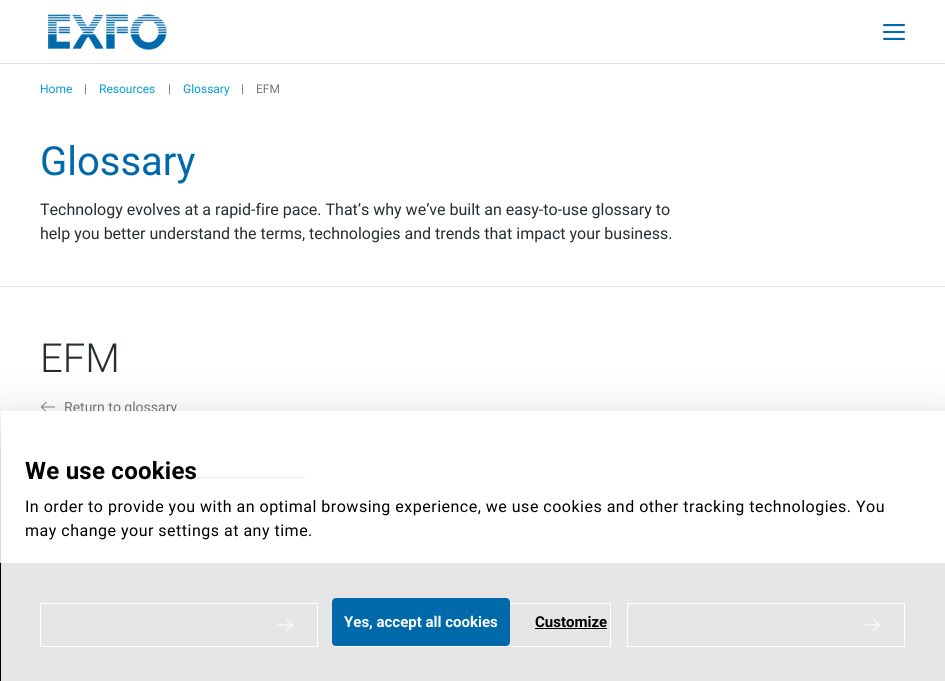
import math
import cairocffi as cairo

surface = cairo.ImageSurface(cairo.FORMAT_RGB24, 945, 681)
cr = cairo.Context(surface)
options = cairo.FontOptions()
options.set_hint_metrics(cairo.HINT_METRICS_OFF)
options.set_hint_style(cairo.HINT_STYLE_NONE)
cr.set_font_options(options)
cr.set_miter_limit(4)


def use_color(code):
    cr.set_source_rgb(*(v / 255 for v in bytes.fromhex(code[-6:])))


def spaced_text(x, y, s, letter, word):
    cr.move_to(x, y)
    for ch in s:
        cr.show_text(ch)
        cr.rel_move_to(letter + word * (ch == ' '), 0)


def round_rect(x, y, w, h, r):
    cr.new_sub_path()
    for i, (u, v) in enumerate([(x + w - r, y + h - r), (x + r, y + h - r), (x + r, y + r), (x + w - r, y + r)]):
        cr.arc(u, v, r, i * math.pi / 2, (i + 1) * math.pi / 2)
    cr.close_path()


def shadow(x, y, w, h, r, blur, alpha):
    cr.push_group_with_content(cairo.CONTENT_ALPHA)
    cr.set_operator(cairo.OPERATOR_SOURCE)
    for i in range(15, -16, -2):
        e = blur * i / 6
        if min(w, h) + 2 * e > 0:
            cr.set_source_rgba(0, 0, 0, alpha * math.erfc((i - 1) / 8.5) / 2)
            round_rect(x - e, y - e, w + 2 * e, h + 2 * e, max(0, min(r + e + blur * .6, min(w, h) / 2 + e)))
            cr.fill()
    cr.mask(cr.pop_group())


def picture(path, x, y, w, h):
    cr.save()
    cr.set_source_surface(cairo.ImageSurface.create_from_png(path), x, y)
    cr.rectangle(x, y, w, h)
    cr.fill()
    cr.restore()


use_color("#ffffff")
cr.paint()
use_color("#dfdfdf")
cr.rectangle(0, 63, 945, 1)
cr.fill()
picture("img1.png", 48, 14, 119, 36)
picture("img2.png", 883, 24, 22, 16)
cr.select_font_face("Roboto")
cr.set_font_size(12)
use_color("#009dd6")
cr.move_to(40, 93)
cr.show_text("Home")
use_color("#747778")
cr.move_to(84, 93)
cr.show_text("|")
use_color("#009dd6")
cr.move_to(99, 93)
cr.show_text("Resources")
use_color("#747778")
cr.move_to(168, 93)
cr.show_text("|")
use_color("#009dd6")
cr.move_to(183, 93)
cr.show_text("Glossary")
use_color("#747778")
cr.move_to(241, 93)
cr.show_text("|")
cr.move_to(256, 93)
cr.show_text("EFM")
cr.set_font_size(40)
use_color("#0069aa")
cr.move_to(40, 175)
cr.show_text("Glossary")
cr.set_font_size(16)
use_color("#272d31")
cr.move_to(40, 215)
cr.show_text("Technology evolves at a rapid-fire pace. That’s why we’ve built an easy-to-use glossary to")
cr.move_to(40, 239)
cr.show_text("help you better understand the terms, technologies and trends that impact your business.")
use_color("#e0e3e3")
cr.rectangle(0, 286, 945, 1)
cr.fill()
cr.select_font_face("Roboto Light")
cr.set_font_size(40)
use_color("#272d31")
cr.move_to(40, 372)
cr.show_text("EFM")
picture("img3.png", 41, 402, 14, 10)
cr.select_font_face("Roboto")
cr.set_font_size(14)
use_color("#747778")
cr.move_to(64, 412)
cr.show_text("Return to glossary")
use_color("#0000ee")
cr.rectangle(136, 477, 169, 1)
cr.fill()
use_color("#000000")
cr.rectangle(0, 563, 945, 118)
cr.fill()
cr.rectangle(40.5, 603.5, 277, 43)
use_color("#ffffff")
cr.set_line_width(1)
cr.stroke()
picture("img4.png", 277, 619, 16, 12)
cr.rectangle(334.5, 603.5, 276, 43)
cr.stroke()
picture("img4.png", 570, 619, 16, 12)
cr.rectangle(627.5, 603.5, 277, 43)
cr.stroke()
picture("img4.png", 864, 619, 16, 12)
cr.save()
cr.set_fill_rule(cairo.FILL_RULE_EVEN_ODD)
cr.new_path()
cr.move_to(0, 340)
cr.line_to(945, 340)
cr.line_to(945, 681)
cr.line_to(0, 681)
cr.close_path()
cr.move_to(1, 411)
cr.line_to(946, 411)
cr.line_to(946, 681)
cr.line_to(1, 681)
cr.close_path()
cr.clip()
use_color("#000000")
shadow(1, 443, 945, 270, 0, 34, 0.3)
cr.restore()
cr.set_source_rgba(1, 1, 1, 0.9)
cr.rectangle(1, 411, 944, 270)
cr.fill()
cr.select_font_face("Roboto", cairo.FONT_SLANT_NORMAL, cairo.FONT_WEIGHT_BOLD)
cr.set_font_size(24)
use_color("#000000")
spaced_text(25, 479, "We use cookies", 0.25, 0)
cr.select_font_face("Roboto")
cr.set_font_size(16)
spaced_text(25, 512, "In order to provide you with an optimal browsing experience, we use cookies and other tracking technologies. You", 0.5, 0)
spaced_text(25, 536, "may change your settings at any time.", 0.5, 0)
use_color("#0069aa")
round_rect(333, 599, 176, 46, 3)
cr.fill_preserve()
cr.set_line_width(2)
cr.stroke()
cr.select_font_face("Roboto", cairo.FONT_SLANT_NORMAL, cairo.FONT_WEIGHT_BOLD)
cr.set_font_size(15)
use_color("#ffffff")
cr.move_to(344, 627)
cr.show_text("Yes, accept all cookies")
use_color("#000000")
cr.move_to(535, 627)
cr.show_text("Customize")
cr.rectangle(535, 628, 72, 1)
cr.fill()
surface.write_to_png("result.png")
